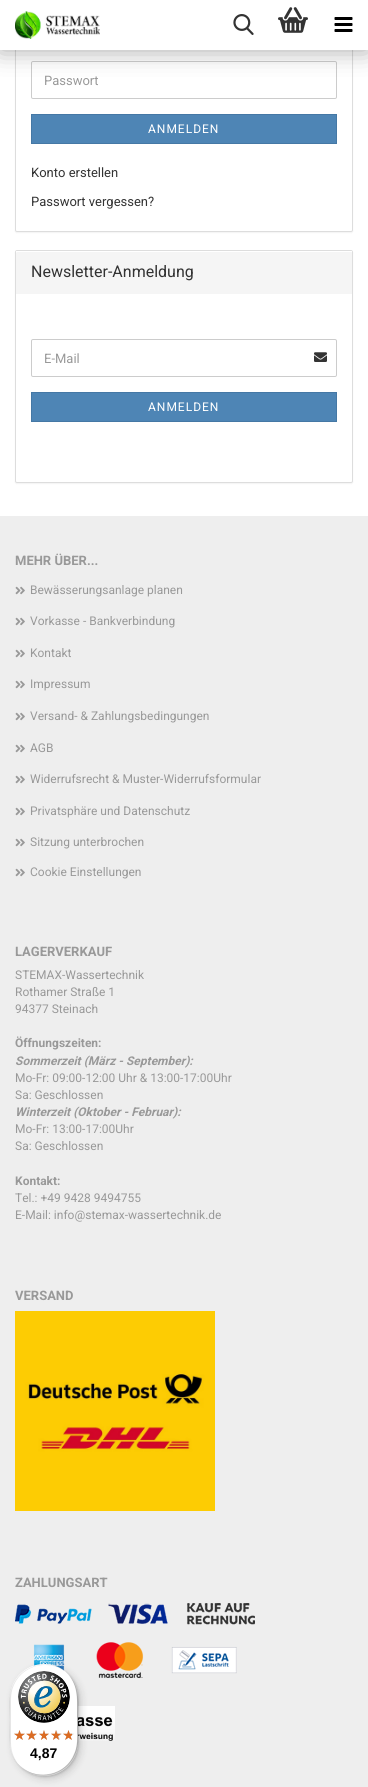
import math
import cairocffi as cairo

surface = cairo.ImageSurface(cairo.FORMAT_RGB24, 368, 1787)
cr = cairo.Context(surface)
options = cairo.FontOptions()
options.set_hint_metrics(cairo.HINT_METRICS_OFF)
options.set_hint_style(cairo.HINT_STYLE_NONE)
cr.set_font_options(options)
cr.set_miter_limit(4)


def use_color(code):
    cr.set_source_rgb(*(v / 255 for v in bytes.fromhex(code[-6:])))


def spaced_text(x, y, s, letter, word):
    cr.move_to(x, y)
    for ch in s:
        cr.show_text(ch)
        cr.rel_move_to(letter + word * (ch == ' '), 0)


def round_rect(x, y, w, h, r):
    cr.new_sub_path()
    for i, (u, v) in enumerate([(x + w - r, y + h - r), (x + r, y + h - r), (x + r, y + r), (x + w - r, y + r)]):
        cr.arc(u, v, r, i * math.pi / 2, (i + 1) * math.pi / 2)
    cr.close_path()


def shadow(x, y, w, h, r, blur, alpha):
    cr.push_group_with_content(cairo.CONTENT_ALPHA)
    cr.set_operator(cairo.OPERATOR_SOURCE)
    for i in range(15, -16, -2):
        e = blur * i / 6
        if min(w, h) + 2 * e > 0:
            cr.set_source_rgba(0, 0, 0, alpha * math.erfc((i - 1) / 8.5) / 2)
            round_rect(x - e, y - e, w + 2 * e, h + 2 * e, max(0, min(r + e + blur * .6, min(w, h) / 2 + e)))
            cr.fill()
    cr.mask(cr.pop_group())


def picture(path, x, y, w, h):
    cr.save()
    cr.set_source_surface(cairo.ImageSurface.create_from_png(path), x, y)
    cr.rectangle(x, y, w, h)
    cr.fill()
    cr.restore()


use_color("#ffffff")
cr.paint()
use_color("#000000")
shadow(15, -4, 338, 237, 2, 0.5, 0.05)
use_color("#ffffff")
round_rect(15.5, -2.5, 337, 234, 1.5)
cr.fill_preserve()
use_color("#dddddd")
cr.set_line_width(1)
cr.stroke()
round_rect(31.5, 61.5, 305, 37, 1.5)
use_color("#cccccc")
cr.stroke()
use_color("#000000")
shadow(0, 0, 368, 50, 0, 12.5, 0.35)
use_color("#ffffff")
cr.rectangle(0, 0, 368, 50)
cr.fill()
picture("img1.png", 15, 11, 85, 28)
picture("img2.png", 233, 14, 21, 21)
picture("img3.png", 278, 7, 30, 26)
picture("img4.png", 334, 17, 19, 15)
cr.select_font_face("Roboto")
cr.set_font_size(13)
use_color("#999999")
cr.move_to(44, 85)
cr.show_text("Passwort")
use_color("#4e85b5")
cr.rectangle(31.5, 114.5, 305, 29)
cr.fill_preserve()
use_color("#4578a5")
cr.stroke()
cr.set_font_size(12)
use_color("#ffffff")
spaced_text(148, 133, "ANMELDEN", 1, 0)
cr.set_font_size(13)
use_color("#333333")
cr.move_to(31, 177)
cr.show_text("Konto erstellen")
cr.move_to(31, 206)
cr.show_text("Passwort vergessen?")
use_color("#000000")
shadow(15, 251, 338, 233, 2, 0.5, 0.05)
use_color("#ffffff")
round_rect(15.5, 250.5, 337, 232, 1.5)
cr.fill_preserve()
use_color("#dddddd")
cr.stroke()
use_color("#f5f5f5")
cr.new_path()
cr.move_to(17, 251)
cr.line_to(351, 251)
cr.curve_to(351.5, 251, 352, 251.5, 352, 252)
cr.line_to(352, 294)
cr.line_to(16, 294)
cr.line_to(16, 252)
cr.curve_to(16, 251.5, 16.5, 251, 17, 251)
cr.close_path()
cr.fill()
use_color("#ffffff")
cr.new_path()
cr.move_to(17, 252)
cr.line_to(351, 252)
cr.curve_to(352, 252, 352, 252, 352, 253)
cr.line_to(352, 252)
cr.curve_to(352, 251, 352, 251, 351, 251)
cr.line_to(17, 251)
cr.curve_to(16, 251, 16, 251, 16, 252)
cr.line_to(16, 253)
cr.close_path()
cr.fill()
cr.set_font_size(16)
use_color("#333333")
cr.move_to(31, 277)
cr.show_text("Newsletter-Anmeldung")
round_rect(31.5, 339.5, 305, 37, 1.5)
use_color("#cccccc")
cr.stroke()
cr.set_font_size(13)
use_color("#999999")
cr.move_to(44, 363)
cr.show_text("E-Mail")
picture("img5.png", 314, 352, 13, 10)
use_color("#4e85b5")
cr.rectangle(31.5, 392.5, 305, 29)
cr.fill_preserve()
use_color("#4578a5")
cr.stroke()
cr.set_font_size(12)
use_color("#ffffff")
spaced_text(148, 411, "ANMELDEN", 1, 0)
use_color("#eeeeee")
cr.rectangle(0, 516, 368, 1271)
cr.fill()
cr.select_font_face("Roboto", cairo.FONT_SLANT_NORMAL, cairo.FONT_WEIGHT_BOLD)
cr.set_font_size(13)
use_color("#999999")
cr.move_to(15, 565)
cr.show_text("MEHR ÜBER...")
picture("img6.png", 15, 586, 10, 9)
cr.select_font_face("Roboto")
cr.set_font_size(12)
cr.move_to(30, 594)
cr.show_text("Bewässerungsanlage planen")
picture("img6.png", 15, 617, 10, 9)
cr.move_to(30, 625)
cr.show_text("Vorkasse - Bankverbindung")
picture("img6.png", 15, 649, 10, 9)
cr.move_to(30, 657)
cr.show_text("Kontakt")
picture("img6.png", 15, 680, 10, 9)
cr.move_to(30, 688)
cr.show_text("Impressum")
picture("img6.png", 15, 712, 10, 9)
cr.move_to(30, 720)
cr.show_text("Versand- & Zahlungsbedingungen")
picture("img6.png", 15, 744, 10, 9)
cr.move_to(30, 752)
cr.show_text("AGB")
picture("img6.png", 15, 775, 10, 9)
cr.move_to(30, 783)
cr.show_text("Widerrufsrecht & Muster-Widerrufsformular")
picture("img6.png", 15, 807, 10, 9)
cr.move_to(30, 815)
cr.show_text("Privatsphäre und Datenschutz")
picture("img6.png", 15, 838, 10, 9)
cr.move_to(30, 846)
cr.show_text("Sitzung unterbrochen")
picture("img6.png", 15, 868, 10, 9)
cr.move_to(30, 876)
cr.show_text("Cookie Einstellungen")
cr.select_font_face("Roboto", cairo.FONT_SLANT_NORMAL, cairo.FONT_WEIGHT_BOLD)
cr.set_font_size(13)
cr.move_to(15, 956)
cr.show_text("LAGERVERKAUF")
cr.select_font_face("Roboto")
cr.set_font_size(12)
cr.move_to(15, 979)
cr.show_text("STEMAX-Wassertechnik")
cr.move_to(15, 996)
cr.show_text("Rothamer Straße 1")
cr.move_to(15, 1013)
cr.show_text("94377 Steinach")
cr.select_font_face("Roboto", cairo.FONT_SLANT_NORMAL, cairo.FONT_WEIGHT_BOLD)
cr.move_to(15, 1047)
cr.show_text("Öffnungszeiten:")
cr.select_font_face("Roboto", cairo.FONT_SLANT_ITALIC, cairo.FONT_WEIGHT_BOLD)
cr.move_to(15, 1065)
cr.show_text("Sommerzeit (März - September):")
cr.select_font_face("Roboto")
cr.move_to(15, 1082)
cr.show_text("Mo-Fr: 09:00-12:00 Uhr & 13:00-17:00Uhr")
cr.move_to(15, 1099)
cr.show_text("Sa: Geschlossen")
cr.select_font_face("Roboto", cairo.FONT_SLANT_ITALIC, cairo.FONT_WEIGHT_BOLD)
cr.move_to(15, 1116)
cr.show_text("Winterzeit (Oktober - Februar):")
cr.select_font_face("Roboto")
cr.move_to(15, 1133)
cr.show_text("Mo-Fr: 13:00-17:00Uhr")
cr.move_to(15, 1150)
cr.show_text("Sa: Geschlossen")
cr.select_font_face("Roboto", cairo.FONT_SLANT_NORMAL, cairo.FONT_WEIGHT_BOLD)
cr.move_to(15, 1185)
cr.show_text("Kontakt:")
cr.select_font_face("Roboto")
cr.move_to(15, 1202)
cr.show_text("Tel.: +49 9428 9494755")
cr.move_to(15, 1219)
cr.show_text("E-Mail: info@stemax-wassertechnik.de")
cr.select_font_face("Roboto", cairo.FONT_SLANT_NORMAL, cairo.FONT_WEIGHT_BOLD)
cr.set_font_size(13)
cr.move_to(15, 1300)
cr.show_text("VERSAND")
picture("img7.png", 15, 1311, 200, 200)
cr.move_to(15, 1587)
cr.show_text("ZAHLUNGSART")
picture("img8.png", 15, 1603, 240, 75)
picture("img9.png", 78, 1706, 37, 35)
use_color("#000000")
shadow(13, 1667, 68, 112, 34, 4, 0.15)
shadow(11, 1665, 68, 112, 34, 1, 0.15)
use_color("#ffffff")
round_rect(10, 1664, 68, 112, 34)
cr.fill()
cr.set_source_rgba(0, 0, 0, 0.1)
cr.new_path()
cr.move_to(45, 1665)
cr.curve_to(53, 1665, 61, 1668, 67, 1673)
cr.curve_to(50, 1658, 22, 1664, 13, 1685)
cr.curve_to(8, 1695, 10, 1709, 10, 1720)
cr.curve_to(10, 1735, 7, 1752, 19, 1765)
cr.curve_to(14, 1759, 11, 1751, 11, 1743)
cr.line_to(11, 1699)
cr.curve_to(11, 1680, 26, 1665, 45, 1665)
cr.close_path()
cr.fill()
cr.set_source_rgba(0, 0, 0, 0.2)
cr.new_path()
cr.move_to(21, 1767)
cr.curve_to(38, 1782, 66, 1776, 75, 1755)
cr.curve_to(80, 1745, 78, 1731, 78, 1720)
cr.curve_to(78, 1705, 81, 1688, 69, 1675)
cr.curve_to(79, 1688, 77, 1704, 77, 1719)
cr.curve_to(77, 1730, 79, 1744, 74, 1754)
cr.curve_to(66, 1775, 38, 1781, 21, 1767)
cr.close_path()
cr.fill()
cr.set_source_rgba(0.196, 0.196, 0.196, 0.2)
cr.new_path()
cr.move_to(17, 1763)
cr.curve_to(24, 1771, 33, 1776, 44, 1776)
cr.curve_to(63, 1776, 78, 1761, 78, 1742)
cr.line_to(78, 1698)
cr.curve_to(78, 1687, 73, 1678, 65, 1671)
cr.curve_to(72, 1678, 77, 1687, 77, 1697)
cr.line_to(77, 1741)
cr.curve_to(77, 1760, 62, 1775, 43, 1775)
cr.curve_to(33, 1775, 24, 1770, 17, 1763)
cr.close_path()
cr.fill()
cr.set_source_rgba(1, 1, 1, 0.3)
cr.set_fill_rule(cairo.FILL_RULE_EVEN_ODD)
cr.new_path()
cr.move_to(44, 1664)
cr.curve_to(63, 1664, 78, 1679, 78, 1698)
cr.curve_to(78, 1679, 62, 1664, 44, 1664)
cr.close_path()
cr.move_to(78, 1742)
cr.curve_to(78, 1760, 62, 1776, 44, 1776)
cr.curve_to(63, 1776, 78, 1761, 78, 1742)
cr.close_path()
cr.fill()
picture("img10.png", 18, 1671, 52, 52)
picture("img11.png", 14, 1730, 11, 10)
picture("img12.png", 27, 1730, 10, 10)
picture("img13.png", 39, 1730, 10, 10)
picture("img14.png", 51, 1730, 11, 10)
picture("img14.png", 63, 1730, 11, 10)
picture("img15.png", 14, 1730, 11, 10)
picture("img16.png", 26, 1730, 11, 10)
picture("img17.png", 39, 1730, 10, 10)
picture("img18.png", 51, 1730, 10, 10)
picture("img19.png", 63, 1730, 9, 10)
cr.select_font_face("Liberation Sans", cairo.FONT_SLANT_NORMAL, cairo.FONT_WEIGHT_BOLD)
cr.set_font_size(14)
use_color("#000000")
cr.move_to(30, 1758)
cr.show_text("4,87")
surface.write_to_png("result.png")
